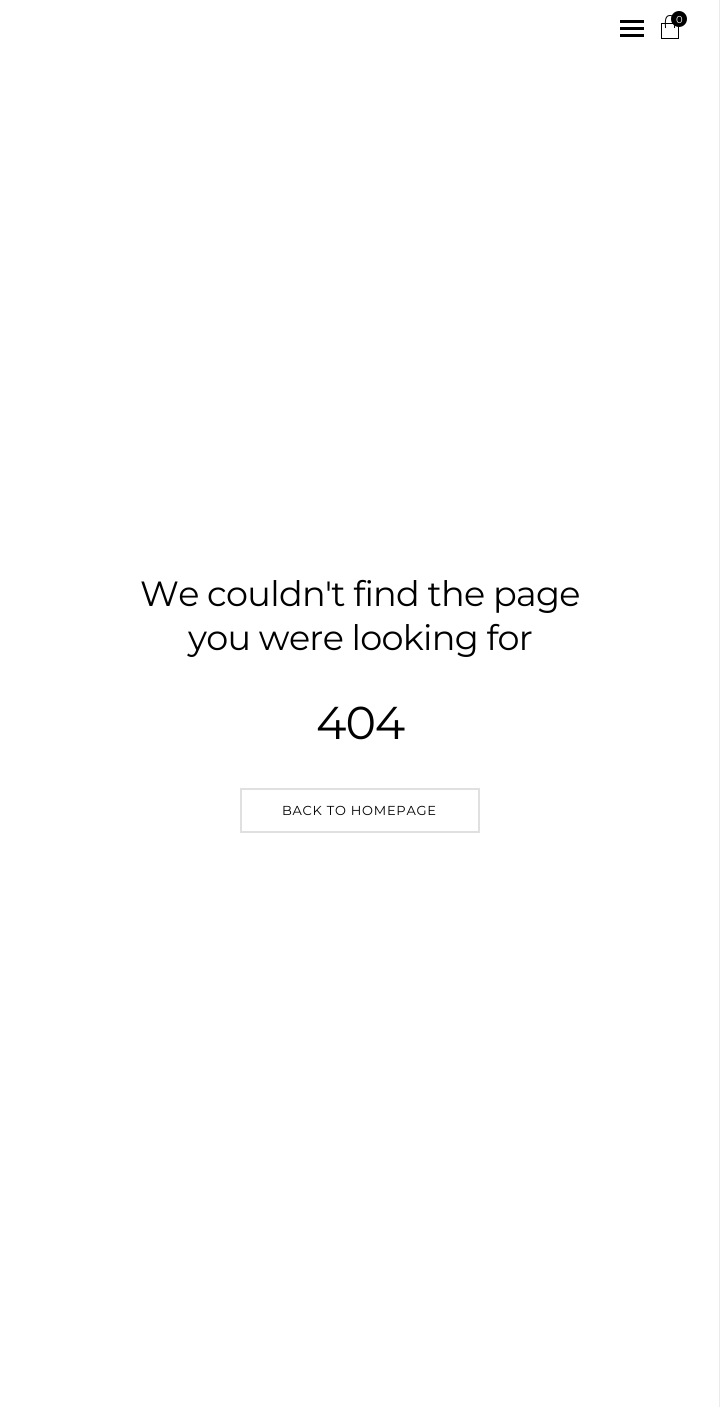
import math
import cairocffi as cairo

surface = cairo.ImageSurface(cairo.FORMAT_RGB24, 720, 1407)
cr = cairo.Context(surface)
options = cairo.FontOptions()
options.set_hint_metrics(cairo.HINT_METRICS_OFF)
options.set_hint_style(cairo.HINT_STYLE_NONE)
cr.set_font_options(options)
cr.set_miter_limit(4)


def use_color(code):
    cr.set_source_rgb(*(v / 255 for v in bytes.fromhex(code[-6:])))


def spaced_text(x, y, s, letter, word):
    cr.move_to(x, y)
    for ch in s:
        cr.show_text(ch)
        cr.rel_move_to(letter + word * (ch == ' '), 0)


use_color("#ffffff")
cr.paint()
use_color("#000000")
cr.rectangle(620, 27, 24, 3)
cr.fill()
cr.rectangle(620, 20, 24, 3)
cr.fill()
cr.rectangle(620, 34, 24, 3)
cr.fill()
cr.rectangle(661.5, 23.5, 17, 15)
cr.set_line_width(1)
cr.stroke()
cr.set_fill_rule(cairo.FILL_RULE_EVEN_ODD)
cr.new_path()
cr.move_to(670, 15)
cr.curve_to(676.5, 15, 675, 24, 675, 28)
cr.line_to(665, 28)
cr.curve_to(665, 24, 663.5, 15, 670, 15)
cr.close_path()
cr.move_to(670, 16)
cr.curve_to(675.5, 16, 674, 24.5, 674, 28)
cr.line_to(666, 28)
cr.curve_to(666, 24.5, 664.5, 16, 670, 16)
cr.close_path()
cr.fill()
cr.arc(679, 19, 8, 0, 2 * math.pi)
cr.fill()
cr.select_font_face("Montserrat Thin")
cr.set_font_size(10)
use_color("#ffffff")
cr.move_to(676, 23)
cr.show_text("0")
use_color("#ebebeb")
cr.rectangle(719, 0, 1, 1407)
cr.fill()
cr.set_font_size(35)
use_color("#000000")
spaced_text(140, 606, "We couldn't find the page", -0.7, 0)
spaced_text(188, 650, "you were looking for", -0.7, 0)
cr.set_font_size(46)
spaced_text(316, 739, "404", -1, 0)
cr.rectangle(241, 789, 238, 43)
use_color("#e0e0e0")
cr.set_line_width(2)
cr.stroke()
cr.set_font_size(13)
use_color("#000000")
spaced_text(282, 815, "BACK TO HOMEPAGE", 0.75, 0)
surface.write_to_png("result.png")
